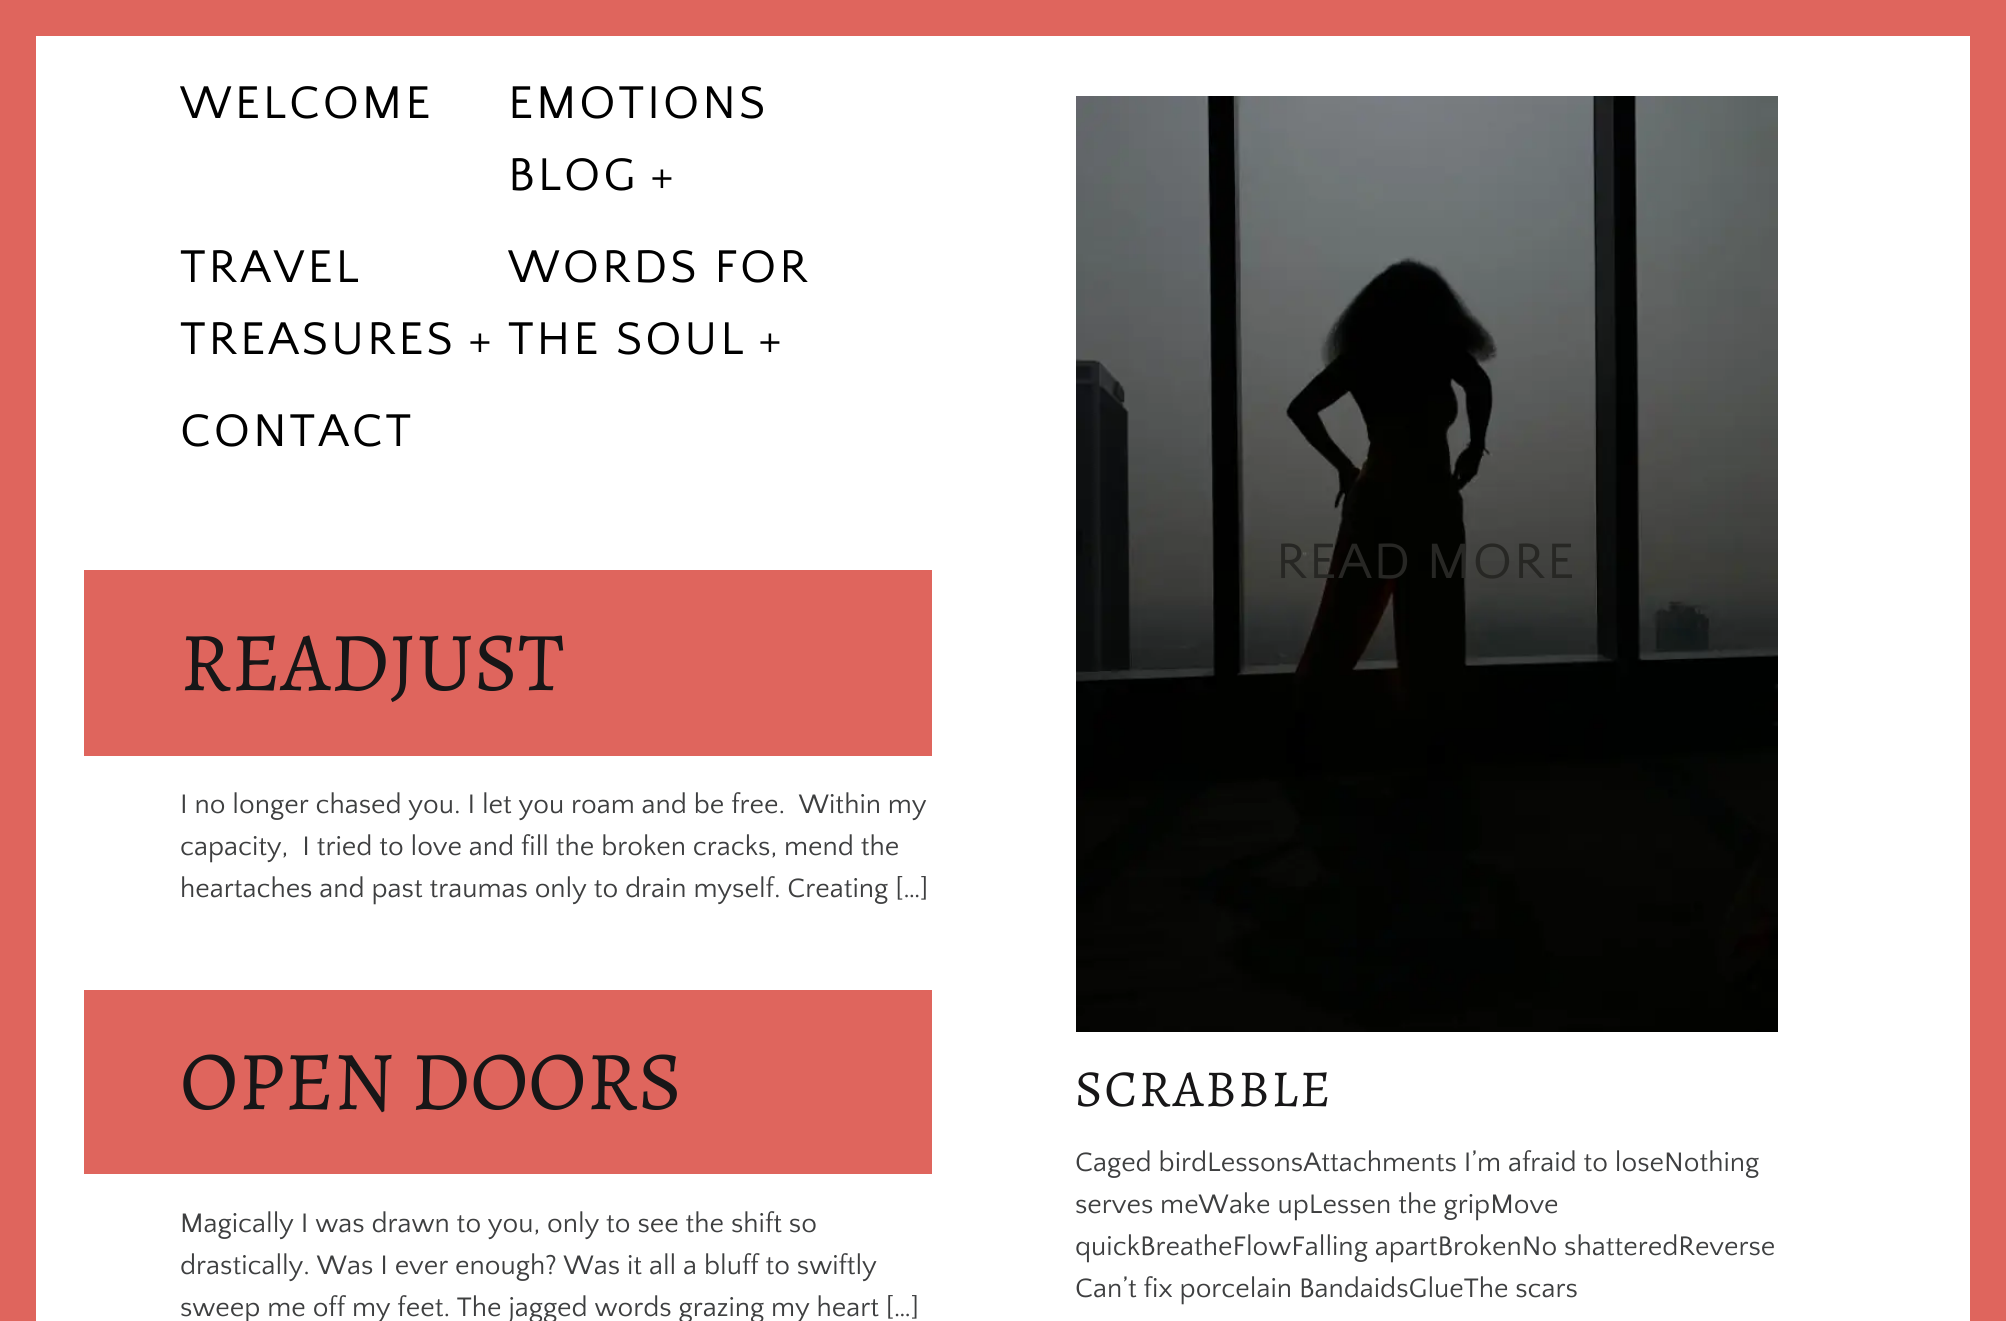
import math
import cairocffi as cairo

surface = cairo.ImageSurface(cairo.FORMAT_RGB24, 2006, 1321)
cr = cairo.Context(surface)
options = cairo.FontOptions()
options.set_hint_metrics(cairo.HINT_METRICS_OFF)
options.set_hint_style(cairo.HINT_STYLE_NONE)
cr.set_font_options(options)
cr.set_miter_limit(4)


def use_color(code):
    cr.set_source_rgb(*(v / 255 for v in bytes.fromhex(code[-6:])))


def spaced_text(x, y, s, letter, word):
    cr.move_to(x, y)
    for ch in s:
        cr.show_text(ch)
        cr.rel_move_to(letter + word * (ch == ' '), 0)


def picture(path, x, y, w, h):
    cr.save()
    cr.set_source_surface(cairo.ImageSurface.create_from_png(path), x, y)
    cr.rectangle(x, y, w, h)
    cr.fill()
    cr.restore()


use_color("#ffffff")
cr.paint()
use_color("#df655d")
cr.rectangle(1970, 36, 36, 1285)
cr.fill()
cr.rectangle(0, 36, 36, 1285)
cr.fill()
cr.rectangle(0, 0, 2006, 36)
cr.fill()
cr.select_font_face("Quattrocento Sans")
cr.set_font_size(48)
use_color("#000000")
spaced_text(180, 118, "WELCOME", 2.9, 0)
spaced_text(508, 118, "EMOTIONS", 2.9, 0)
spaced_text(508, 190, "BLOG", 2.9, 0)
spaced_text(650, 190, "+", 2.9, 0)
spaced_text(180, 282, "TRAVEL", 2.9, 0)
spaced_text(180, 354, "TREASURES", 2.9, 0)
spaced_text(468, 354, "+", 2.9, 0)
spaced_text(508, 282, "WORDS FOR", 2.9, 0)
spaced_text(508, 354, "THE SOUL", 2.9, 0)
spaced_text(758, 354, "+", 2.9, 0)
spaced_text(180, 446, "CONTACT", 2.9, 0)
use_color("#df655d")
cr.rectangle(84, 570, 848, 186)
cr.fill()
cr.select_font_face("Alegreya")
cr.set_font_size(84)
use_color("#171617")
cr.move_to(180, 690)
cr.show_text("READJUST")
cr.select_font_face("Quattrocento Sans")
cr.set_font_size(28)
use_color("#3e3f40")
cr.move_to(180, 813)
cr.show_text("I no longer chased you. I let you roam and be free.  Within my")
cr.move_to(180, 855)
cr.show_text("capacity,  I tried to love and fill the broken cracks, mend the")
cr.move_to(180, 897)
cr.show_text("heartaches and past traumas only to drain myself. Creating […]")
picture("img1.png", 1076, 96, 702, 936)
cr.set_font_size(52)
use_color("#272724")
spaced_text(1276, 578, "READ MORE", 2, 0)
cr.select_font_face("Alegreya")
use_color("#171617")
spaced_text(1075, 1106, "SCRABBLE", 2, 0)
cr.select_font_face("Quattrocento Sans")
cr.set_font_size(28)
use_color("#3e3f40")
cr.move_to(1075, 1171)
cr.show_text("Caged birdLessonsAttachments I’m afraid to loseNothing")
cr.move_to(1075, 1213)
cr.show_text("serves meWake upLessen the gripMove")
cr.move_to(1075, 1255)
cr.show_text("quickBreatheFlowFalling apartBrokenNo shatteredReverse")
cr.move_to(1075, 1297)
cr.show_text("Can’t fix porcelain BandaidsGlueThe scars")
use_color("#df655d")
cr.rectangle(84, 990, 848, 184)
cr.fill()
cr.select_font_face("Alegreya")
cr.set_font_size(84)
use_color("#171617")
cr.move_to(180, 1109)
cr.show_text("OPEN DOORS")
cr.select_font_face("Quattrocento Sans")
cr.set_font_size(28)
use_color("#3e3f40")
cr.move_to(180, 1232)
cr.show_text("Magically I was drawn to you, only to see the shift so")
cr.move_to(180, 1274)
cr.show_text("drastically. Was I ever enough? Was it all a bluff to swiftly")
cr.move_to(180, 1316)
cr.show_text("sweep me off my feet. The jagged words grazing my heart […]")
surface.write_to_png("result.png")
